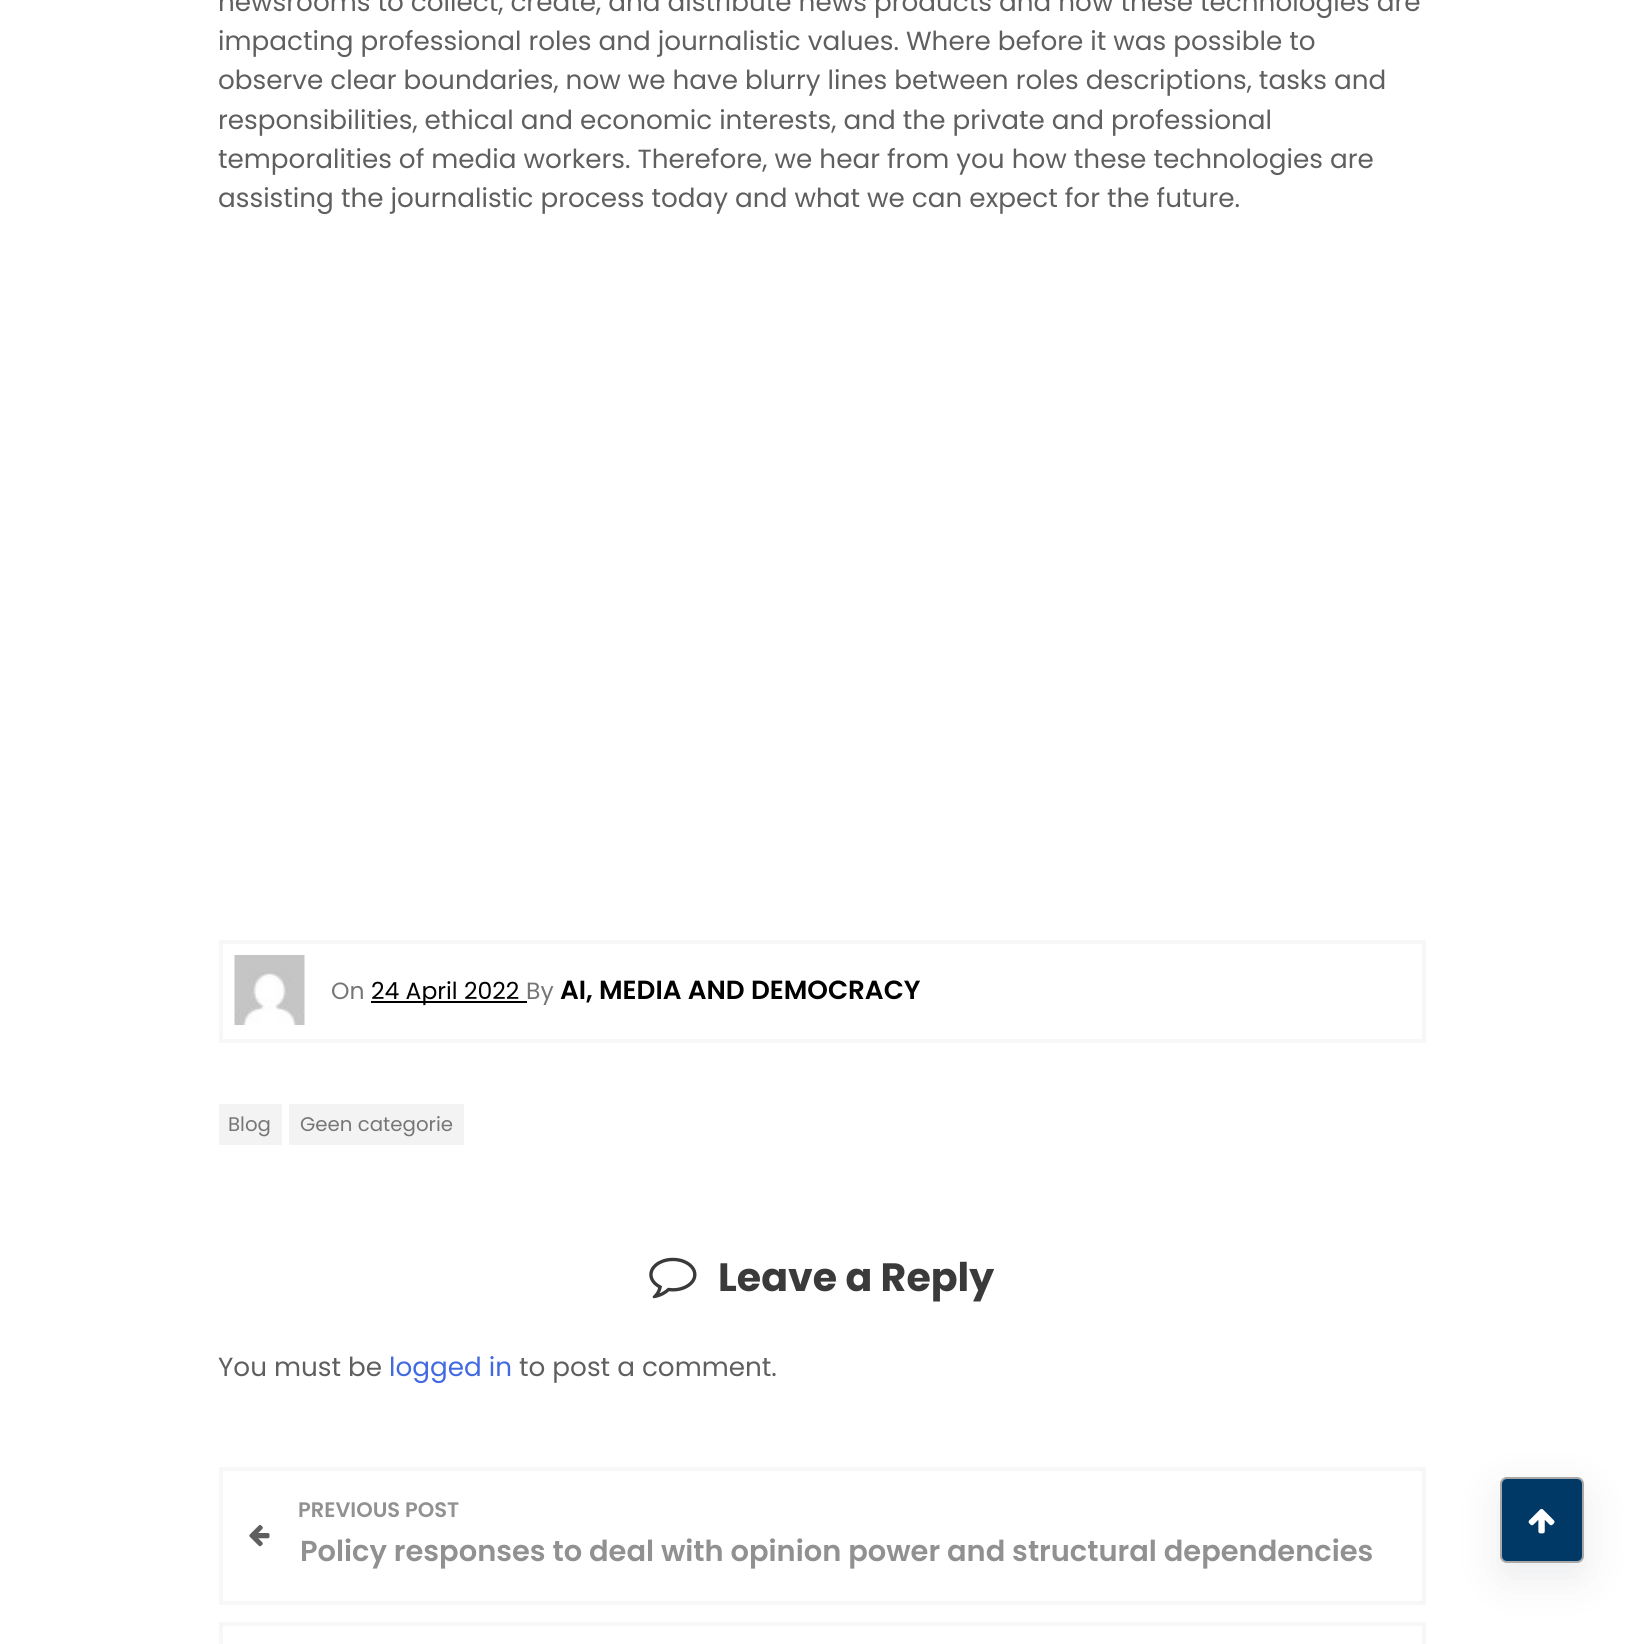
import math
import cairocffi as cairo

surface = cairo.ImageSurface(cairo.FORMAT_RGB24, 1642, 1644)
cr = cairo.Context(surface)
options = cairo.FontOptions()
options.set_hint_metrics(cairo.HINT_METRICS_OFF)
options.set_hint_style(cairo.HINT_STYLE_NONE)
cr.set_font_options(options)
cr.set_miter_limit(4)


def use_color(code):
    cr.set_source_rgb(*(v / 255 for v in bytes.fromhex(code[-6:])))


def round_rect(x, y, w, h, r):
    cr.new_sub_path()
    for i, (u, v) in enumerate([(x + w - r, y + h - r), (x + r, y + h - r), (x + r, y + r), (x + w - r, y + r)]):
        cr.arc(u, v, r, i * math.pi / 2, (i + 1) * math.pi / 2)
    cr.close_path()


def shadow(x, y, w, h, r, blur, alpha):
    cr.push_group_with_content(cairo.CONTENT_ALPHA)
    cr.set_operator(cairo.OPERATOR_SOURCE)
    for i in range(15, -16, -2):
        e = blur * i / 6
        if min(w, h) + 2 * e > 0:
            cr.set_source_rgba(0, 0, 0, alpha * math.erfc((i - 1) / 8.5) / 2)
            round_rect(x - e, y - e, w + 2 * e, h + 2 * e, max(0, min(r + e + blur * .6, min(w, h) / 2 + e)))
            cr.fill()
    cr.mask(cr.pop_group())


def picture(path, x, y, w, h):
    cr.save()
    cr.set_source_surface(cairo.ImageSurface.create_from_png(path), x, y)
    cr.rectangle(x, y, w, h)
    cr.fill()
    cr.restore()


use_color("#ffffff")
cr.paint()
cr.select_font_face("Poppins")
cr.set_font_size(26.25)
use_color("#5f5f5f")
cr.move_to(218, 11)
cr.show_text("newsrooms to collect, create, and distribute news products and how these technologies are")
cr.move_to(218, 50)
cr.show_text("impacting professional roles and journalistic values. Where before it was possible to")
cr.move_to(218, 89)
cr.show_text("observe clear boundaries, now we have blurry lines between roles descriptions, tasks and")
cr.move_to(218, 129)
cr.show_text("responsibilities, ethical and economic interests, and the private and professional")
cr.move_to(218, 168)
cr.show_text("temporalities of media workers. Therefore, we hear from you how these technologies are")
cr.move_to(218, 207)
cr.show_text("assisting the journalistic process today and what we can expect for the future.")
cr.rectangle(221, 942, 1203, 99)
use_color("#f7f7f7")
cr.set_line_width(4)
cr.stroke()
picture("img1.png", 234, 955, 71, 70)
cr.set_font_size(23.5)
use_color("#767676")
cr.move_to(331, 999)
cr.show_text("On")
use_color("#000000")
cr.rectangle(371, 1001, 156, 2)
cr.fill()
cr.move_to(371, 999)
cr.show_text("24 April 2022")
use_color("#767676")
cr.move_to(526, 999)
cr.show_text("By")
cr.select_font_face("Poppins SemiBold")
cr.set_font_size(26.25)
use_color("#000000")
cr.move_to(560, 999)
cr.show_text("AI, MEDIA AND DEMOCRACY")
use_color("#f3f3f3")
cr.rectangle(219, 1104, 63, 41)
cr.fill()
cr.select_font_face("Poppins")
cr.set_font_size(19.75)
use_color("#767676")
cr.move_to(228, 1131)
cr.show_text("Blog")
use_color("#f3f3f3")
cr.rectangle(289, 1104, 175, 41)
cr.fill()
use_color("#767676")
cr.move_to(300, 1131)
cr.show_text("Geen categorie")
picture("img2.png", 649, 1257, 48, 42)
cr.select_font_face("Poppins", cairo.FONT_SLANT_NORMAL, cairo.FONT_WEIGHT_BOLD)
cr.set_font_size(39.5)
use_color("#3a3a3a")
cr.move_to(718, 1291)
cr.show_text("Leave a Reply")
cr.select_font_face("Poppins")
cr.set_font_size(26.25)
use_color("#5f5f5f")
cr.move_to(218, 1376)
cr.show_text("You must be")
use_color("#4169e1")
cr.move_to(389, 1376)
cr.show_text("logged in")
use_color("#5f5f5f")
cr.move_to(519, 1376)
cr.show_text("to post a comment.")
cr.rectangle(221, 1469, 1203, 134)
use_color("#f7f7f7")
cr.stroke()
picture("img3.png", 249, 1525, 21, 22)
cr.select_font_face("Poppins SemiBold")
cr.set_font_size(21)
use_color("#919191")
cr.move_to(298, 1517)
cr.show_text("PREVIOUS POST")
cr.set_font_size(28.9)
cr.move_to(300, 1561)
cr.show_text("Policy responses to deal with opinion power and structural dependencies")
cr.rectangle(221, 1624, 1203, 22)
use_color("#f7f7f7")
cr.stroke()
use_color("#959da5")
shadow(1500, 1491, 84, 86, 7, 21, 0.2)
use_color("#003966")
round_rect(1501, 1478, 82, 84, 6)
cr.fill_preserve()
use_color("#a8a8a8")
cr.set_line_width(2)
cr.stroke()
picture("img4.png", 1528, 1509, 27, 25)
surface.write_to_png("result.png")
